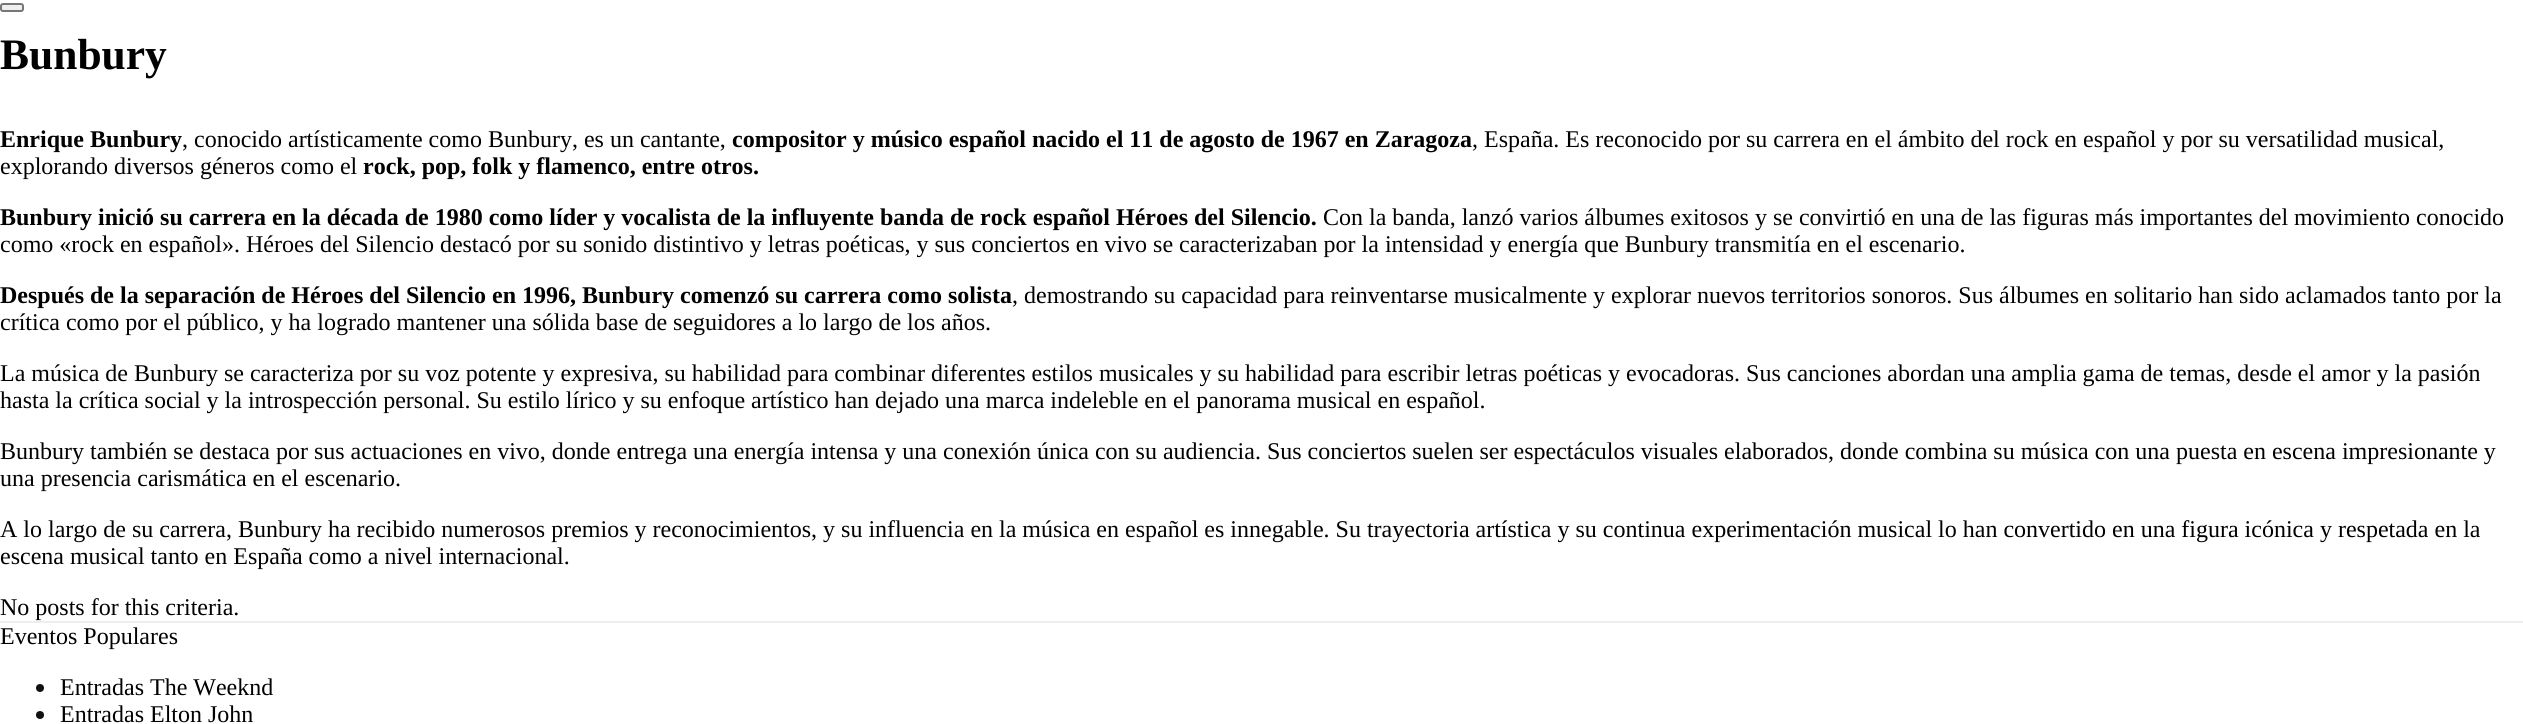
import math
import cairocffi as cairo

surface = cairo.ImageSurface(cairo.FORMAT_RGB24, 2523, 724)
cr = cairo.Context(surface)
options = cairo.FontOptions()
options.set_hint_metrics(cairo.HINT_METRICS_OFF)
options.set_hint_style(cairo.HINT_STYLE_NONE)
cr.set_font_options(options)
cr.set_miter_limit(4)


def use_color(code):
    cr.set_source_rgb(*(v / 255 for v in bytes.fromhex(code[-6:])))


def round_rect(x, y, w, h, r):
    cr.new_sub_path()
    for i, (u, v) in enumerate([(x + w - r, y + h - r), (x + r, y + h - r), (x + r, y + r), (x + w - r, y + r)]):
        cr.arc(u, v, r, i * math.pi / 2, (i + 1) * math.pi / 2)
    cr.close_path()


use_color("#ffffff")
cr.paint()
use_color("#efefef")
round_rect(1, 4, 22, 7, 2)
cr.fill_preserve()
use_color("#767676")
cr.stroke()
cr.select_font_face("Liberation Serif", cairo.FONT_SLANT_NORMAL, cairo.FONT_WEIGHT_BOLD)
cr.set_font_size(43.5)
use_color("#000000")
cr.move_to(0, 69)
cr.show_text("Bunbury")
cr.set_font_size(24)
cr.move_to(0, 147)
cr.show_text("Enrique Bunbury")
cr.select_font_face("Liberation Serif")
cr.move_to(182, 147)
cr.show_text(", conocido artísticamente como Bunbury, es un cantante,")
cr.select_font_face("Liberation Serif", cairo.FONT_SLANT_NORMAL, cairo.FONT_WEIGHT_BOLD)
cr.move_to(732, 147)
cr.show_text("compositor y músico español nacido el 11 de agosto de 1967 en Zaragoza")
cr.select_font_face("Liberation Serif")
cr.move_to(1472, 147)
cr.show_text(", España. Es reconocido por su carrera en el ámbito del rock en español y por su versatilidad musical,")
cr.move_to(0, 174)
cr.show_text("explorando diversos géneros como el")
cr.select_font_face("Liberation Serif", cairo.FONT_SLANT_NORMAL, cairo.FONT_WEIGHT_BOLD)
cr.move_to(363, 174)
cr.show_text("rock, pop, folk y flamenco, entre otros.")
cr.move_to(0, 225)
cr.show_text("Bunbury inició su carrera en la década de 1980 como líder y vocalista de la influyente banda de rock español Héroes del Silencio.")
cr.select_font_face("Liberation Serif")
cr.move_to(1323, 225)
cr.show_text("Con la banda, lanzó varios álbumes exitosos y se convirtió en una de las figuras más importantes del movimiento conocido")
cr.move_to(0, 252)
cr.show_text("como «rock en español». Héroes del Silencio destacó por su sonido distintivo y letras poéticas, y sus conciertos en vivo se caracterizaban por la intensidad y energía que Bunbury transmitía en el escenario.")
cr.select_font_face("Liberation Serif", cairo.FONT_SLANT_NORMAL, cairo.FONT_WEIGHT_BOLD)
cr.move_to(0, 303)
cr.show_text("Después de la separación de Héroes del Silencio en 1996, Bunbury comenzó su carrera como solista")
cr.select_font_face("Liberation Serif")
cr.move_to(1012, 303)
cr.show_text(", demostrando su capacidad para reinventarse musicalmente y explorar nuevos territorios sonoros. Sus álbumes en solitario han sido aclamados tanto por la")
cr.move_to(0, 330)
cr.show_text("crítica como por el público, y ha logrado mantener una sólida base de seguidores a lo largo de los años.")
cr.move_to(0, 381)
cr.show_text("La música de Bunbury se caracteriza por su voz potente y expresiva, su habilidad para combinar diferentes estilos musicales y su habilidad para escribir letras poéticas y evocadoras. Sus canciones abordan una amplia gama de temas, desde el amor y la pasión")
cr.move_to(0, 408)
cr.show_text("hasta la crítica social y la introspección personal. Su estilo lírico y su enfoque artístico han dejado una marca indeleble en el panorama musical en español.")
cr.move_to(0, 459)
cr.show_text("Bunbury también se destaca por sus actuaciones en vivo, donde entrega una energía intensa y una conexión única con su audiencia. Sus conciertos suelen ser espectáculos visuales elaborados, donde combina su música con una puesta en escena impresionante y")
cr.move_to(0, 486)
cr.show_text("una presencia carismática en el escenario.")
cr.move_to(0, 537)
cr.show_text("A lo largo de su carrera, Bunbury ha recibido numerosos premios y reconocimientos, y su influencia en la música en español es innegable. Su trayectoria artística y su continua experimentación musical lo han convertido en una figura icónica y respetada en la")
cr.move_to(0, 564)
cr.show_text("escena musical tanto en España como a nivel internacional.")
cr.move_to(0, 615)
cr.show_text("No posts for this criteria.")
use_color("#eeeeee")
cr.rectangle(0, 621, 2523, 2)
cr.fill()
use_color("#000000")
cr.move_to(0, 644)
cr.show_text("Eventos Populares")
use_color("#111111")
cr.new_path()
cr.arc(40, 688, 4, 0, 2 * math.pi)
cr.fill()
use_color("#000000")
cr.move_to(60, 695)
cr.show_text("Entradas The Weeknd")
use_color("#111111")
cr.new_path()
cr.arc(40, 715, 4, 0, 2 * math.pi)
cr.fill()
use_color("#000000")
cr.move_to(60, 722)
cr.show_text("Entradas Elton John")
surface.write_to_png("result.png")
